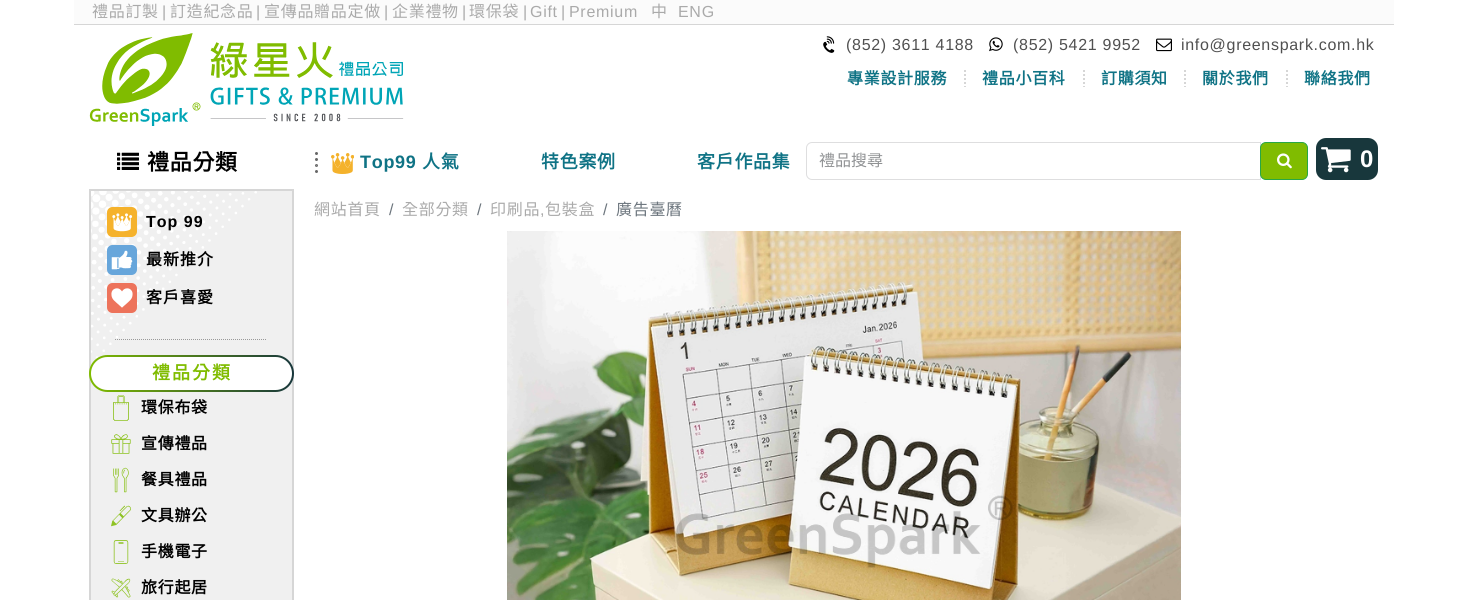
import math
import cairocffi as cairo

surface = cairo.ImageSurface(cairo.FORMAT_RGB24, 1468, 600)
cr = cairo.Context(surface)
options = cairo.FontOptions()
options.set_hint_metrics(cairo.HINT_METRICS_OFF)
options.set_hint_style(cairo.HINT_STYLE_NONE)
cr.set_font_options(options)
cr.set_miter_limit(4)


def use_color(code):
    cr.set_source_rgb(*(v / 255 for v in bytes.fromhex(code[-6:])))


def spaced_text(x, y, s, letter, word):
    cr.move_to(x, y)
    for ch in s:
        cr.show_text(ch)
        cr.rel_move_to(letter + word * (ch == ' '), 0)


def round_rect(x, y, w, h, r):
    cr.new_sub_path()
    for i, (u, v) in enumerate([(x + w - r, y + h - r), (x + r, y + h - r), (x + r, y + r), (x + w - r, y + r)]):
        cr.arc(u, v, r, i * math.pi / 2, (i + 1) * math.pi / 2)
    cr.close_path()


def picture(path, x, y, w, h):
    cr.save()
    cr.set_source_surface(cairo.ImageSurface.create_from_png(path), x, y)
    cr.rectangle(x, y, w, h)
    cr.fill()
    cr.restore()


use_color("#ffffff")
cr.paint()
use_color("#fbfbfb")
cr.rectangle(74, 0, 1320, 24)
cr.fill()
use_color("#d6d6d6")
cr.rectangle(74, 24, 1320, 1)
cr.fill()
cr.select_font_face("Noto Sans CJK TC")
cr.set_font_size(16)
use_color("#aaaaaa")
spaced_text(92, 17, "禮品訂製", 0.7, 0)
cr.select_font_face("Liberation Sans")
spaced_text(162, 17, "|", 0.7, 0)
cr.select_font_face("Noto Sans CJK TC")
spaced_text(170, 17, "訂造紀念品", 0.7, 0)
cr.select_font_face("Liberation Sans")
spaced_text(256, 17, "|", 0.7, 0)
cr.select_font_face("Noto Sans CJK TC")
spaced_text(264, 17, "宣傳品贈品定做", 0.7, 0)
cr.select_font_face("Liberation Sans")
spaced_text(384, 17, "|", 0.7, 0)
cr.select_font_face("Noto Sans CJK TC")
spaced_text(392, 17, "企業禮物", 0.7, 0)
cr.select_font_face("Liberation Sans")
spaced_text(462, 17, "|", 0.7, 0)
cr.select_font_face("Noto Sans CJK TC")
spaced_text(469, 17, "環保袋", 0.7, 0)
cr.select_font_face("Liberation Sans")
spaced_text(523, 17, "|", 0.7, 0)
spaced_text(530, 17, "Gift", 0.7, 0)
spaced_text(561, 17, "|", 0.7, 0)
spaced_text(569, 17, "Premium", 0.7, 0)
cr.select_font_face("Noto Sans CJK TC")
spaced_text(651, 17, "中", 0.7, 0)
cr.select_font_face("Liberation Sans")
spaced_text(678, 17, "ENG", 0.7, 0)
picture("img1.png", 89, 33, 315, 93)
picture("img2.png", 823, 36, 12, 17)
use_color("#505050")
spaced_text(846, 50, "(852) 3611 4188", 0.7, 0)
picture("img3.png", 989, 37, 14, 15)
spaced_text(1013, 50, "(852) 5421 9952", 0.7, 0)
picture("img4.png", 1156, 38, 16, 14)
spaced_text(1181, 50, "info@greenspark.com.hk", 0.7, 0)
cr.select_font_face("Noto Sans CJK TC", cairo.FONT_SLANT_NORMAL, cairo.FONT_WEIGHT_BOLD)
use_color("#0f7385")
spaced_text(847, 84, "專業設計服務", 0.7, 0)
cr.new_path()
cr.move_to(965, 70)
cr.line_to(965, 87)
use_color("#d6d6d6")
cr.set_dash([2, 2])
cr.stroke()
use_color("#0f7385")
spaced_text(982, 84, "禮品小百科", 0.7, 0)
cr.new_path()
cr.move_to(1084, 70)
cr.line_to(1084, 87)
use_color("#d6d6d6")
cr.stroke()
use_color("#0f7385")
spaced_text(1101, 84, "訂購須知", 0.7, 0)
cr.new_path()
cr.move_to(1185, 70)
cr.line_to(1185, 87)
use_color("#d6d6d6")
cr.stroke()
use_color("#0f7385")
spaced_text(1202, 84, "關於我們", 0.7, 0)
cr.new_path()
cr.move_to(1287, 70)
cr.line_to(1287, 87)
use_color("#d6d6d6")
cr.stroke()
use_color("#0f7385")
spaced_text(1304, 84, "聯絡我們", 0.7, 0)
picture("img5.png", 117, 152, 22, 18)
cr.set_font_size(22)
use_color("#000000")
spaced_text(147, 170, "禮品分類", 0.7, 0)
use_color("#666666")
cr.new_path()
cr.arc(316.5, 159.5, 1.5, 0, 2 * math.pi)
cr.fill()
cr.arc(316.5, 153.5, 1.5, 0, 2 * math.pi)
cr.fill()
cr.arc(316.5, 171.5, 1.5, 0, 2 * math.pi)
cr.fill()
cr.arc(316.5, 165.5, 1, 0, 2 * math.pi)
cr.set_line_width(1)
cr.set_dash([])
cr.stroke()
cr.arc(316.5, 165.5, 0.5, 0, 2 * math.pi)
cr.fill()
picture("img6.png", 331, 153, 23, 21)
cr.select_font_face("Liberation Sans", cairo.FONT_SLANT_NORMAL, cairo.FONT_WEIGHT_BOLD)
cr.set_font_size(18)
use_color("#0f7385")
spaced_text(360, 168, "Top99", 0.7, 0)
cr.select_font_face("Noto Sans CJK TC", cairo.FONT_SLANT_NORMAL, cairo.FONT_WEIGHT_BOLD)
spaced_text(422, 168, "人氣", 0.7, 0)
spaced_text(541, 168, "特色案例", 0.7, 0)
spaced_text(697, 168, "客戶作品集", 0.7, 0)
cr.new_path()
cr.move_to(812, 142.5)
cr.line_to(1260.5, 142.5)
cr.line_to(1260.5, 179.5)
cr.line_to(812, 179.5)
cr.curve_to(809, 179.5, 806.5, 177, 806.5, 174)
cr.line_to(806.5, 148)
cr.curve_to(806.5, 145, 809, 142.5, 812, 142.5)
cr.close_path()
use_color("#dededf")
cr.stroke()
cr.select_font_face("Noto Sans CJK TC")
cr.set_font_size(16)
use_color("#909294")
cr.move_to(819, 166)
cr.show_text("禮品搜尋")
use_color("#80bc00")
round_rect(1260.5, 142.5, 47, 37, 5.5)
cr.fill_preserve()
use_color("#28a745")
cr.stroke()
picture("img7.png", 1277, 153, 15, 16)
use_color("#18373c")
round_rect(1316, 138, 62, 42, 10)
cr.fill()
picture("img8.png", 1321, 147, 30, 26)
cr.select_font_face("Liberation Sans", cairo.FONT_SLANT_NORMAL, cairo.FONT_WEIGHT_BOLD)
cr.set_font_size(24)
use_color("#ffffff")
cr.move_to(1360, 167)
cr.show_text("0")
cr.select_font_face("Noto Sans CJK TC")
cr.set_font_size(16)
use_color("#aaaaaa")
spaced_text(314, 215, "網站首頁", 0.7, 0)
cr.select_font_face("Liberation Sans")
use_color("#6c757d")
spaced_text(389, 215, "/", 0.7, 0)
cr.select_font_face("Noto Sans CJK TC")
use_color("#aaaaaa")
spaced_text(402, 215, "全部分類", 0.7, 0)
cr.select_font_face("Liberation Sans")
use_color("#6c757d")
spaced_text(477, 215, "/", 0.7, 0)
cr.select_font_face("Noto Sans CJK TC")
use_color("#aaaaaa")
spaced_text(490, 215, "印刷品", 0.7, 0)
cr.select_font_face("Liberation Sans")
spaced_text(540, 215, ",", 0.7, 0)
cr.select_font_face("Noto Sans CJK TC")
spaced_text(545, 215, "包裝盒", 0.7, 0)
cr.select_font_face("Liberation Sans")
use_color("#6c757d")
spaced_text(603, 215, "/", 0.7, 0)
cr.select_font_face("Noto Sans CJK TC")
spaced_text(616, 215, "廣告臺曆", 0.7, 0)
picture("img9.png", 507, 231, 674, 369)
use_color("#f0f0f0")
cr.rectangle(91, 191, 201, 409)
cr.fill()
picture("img10.png", 91, 191, 166, 168)
cr.rectangle(90, 190, 203, 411)
use_color("#d6d6d6")
cr.set_line_width(2)
cr.stroke()
picture("img11.png", 107, 207, 30, 30)
cr.select_font_face("Liberation Sans", cairo.FONT_SLANT_NORMAL, cairo.FONT_WEIGHT_BOLD)
use_color("#000000")
spaced_text(146, 227, "Top 99", 1, 0)
picture("img12.png", 107, 245, 30, 30)
cr.select_font_face("Noto Sans CJK TC", cairo.FONT_SLANT_NORMAL, cairo.FONT_WEIGHT_BOLD)
spaced_text(146, 265, "最新推介", 1, 0)
picture("img13.png", 107, 283, 30, 30)
spaced_text(146, 303, "客戶喜愛", 1, 0)
cr.new_path()
cr.move_to(115, 339.5)
cr.line_to(266, 339.5)
use_color("#999999")
cr.set_line_width(1)
cr.set_dash([1, 1])
cr.stroke()
gradient = cairo.LinearGradient(89, 374, 294, 374)
gradient.add_color_stop_rgba(0, 0.502, 0.737, 0, 1)
gradient.add_color_stop_rgba(1, 0.094, 0.216, 0.235, 1)
cr.set_source(gradient)
round_rect(89, 355, 205, 37, 18.5)
cr.fill()
use_color("#ffffff")
round_rect(91, 357, 201, 33, 16.5)
cr.fill()
cr.set_font_size(18)
use_color("#80bc00")
spaced_text(152, 379, "禮品分類", 2, 0)
picture("img14.png", 113, 395, 16, 26)
cr.set_font_size(16)
use_color("#000000")
spaced_text(141, 413, "環保布袋", 0.7, 0)
picture("img15.png", 111, 434, 20, 20)
spaced_text(141, 449, "宣傳禮品", 0.7, 0)
picture("img16.png", 113, 467, 16, 26)
spaced_text(141, 485, "餐具禮品", 0.7, 0)
picture("img17.png", 111, 505, 20, 22)
spaced_text(141, 521, "文具辦公", 0.7, 0)
picture("img18.png", 113, 540, 16, 24)
spaced_text(141, 557, "手機電子", 0.7, 0)
picture("img19.png", 111, 578, 20, 20)
spaced_text(141, 593, "旅行起居", 0.7, 0)
surface.write_to_png("result.png")
